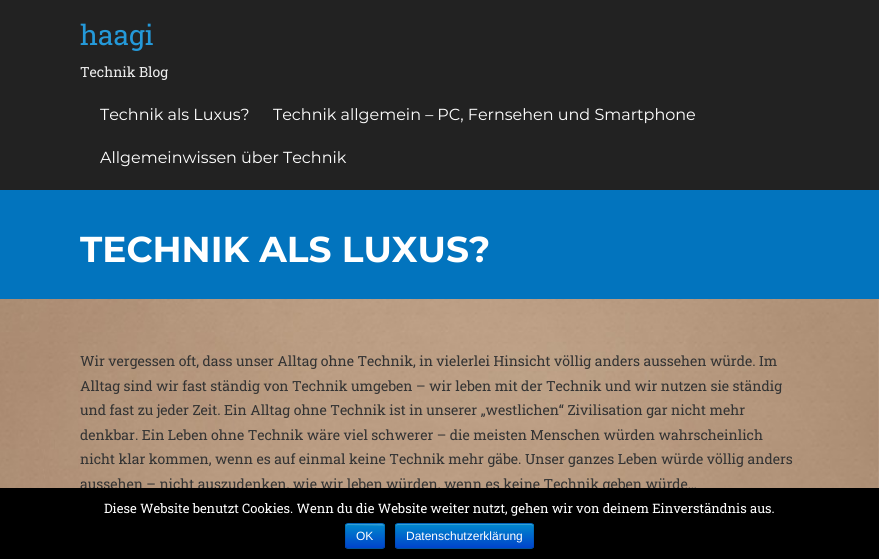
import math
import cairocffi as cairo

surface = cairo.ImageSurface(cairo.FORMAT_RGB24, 879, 559)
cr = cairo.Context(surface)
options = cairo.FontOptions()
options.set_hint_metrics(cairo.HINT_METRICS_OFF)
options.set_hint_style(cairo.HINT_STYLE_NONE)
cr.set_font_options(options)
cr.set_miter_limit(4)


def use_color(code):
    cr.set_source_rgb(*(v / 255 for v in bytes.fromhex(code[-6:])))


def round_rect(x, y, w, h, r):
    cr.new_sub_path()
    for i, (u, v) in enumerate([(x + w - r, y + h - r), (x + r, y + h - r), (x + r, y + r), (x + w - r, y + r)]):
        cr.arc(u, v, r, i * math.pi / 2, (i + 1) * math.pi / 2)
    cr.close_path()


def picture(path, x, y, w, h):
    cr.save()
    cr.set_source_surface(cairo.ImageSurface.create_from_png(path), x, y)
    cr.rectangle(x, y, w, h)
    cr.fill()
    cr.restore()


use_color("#ffffff")
cr.paint()
picture("img1.png", 0, 299, 879, 189)
use_color("#222222")
cr.rectangle(0, 0, 879, 190)
cr.fill()
cr.select_font_face("Roboto Slab")
cr.set_font_size(28)
use_color("#2499d9")
cr.move_to(80, 45)
cr.show_text("haagi")
cr.set_font_size(14)
use_color("#eeeeee")
cr.move_to(80, 77)
cr.show_text("Technik Blog")
cr.select_font_face("Montserrat")
cr.set_font_size(16)
use_color("#ffffff")
cr.move_to(100, 120)
cr.show_text("Technik als Luxus?")
cr.move_to(273, 120)
cr.show_text("Technik allgemein – PC, Fernsehen und Smartphone")
cr.move_to(100, 163)
cr.show_text("Allgemeinwissen über Technik")
use_color("#0274be")
cr.rectangle(0, 190, 879, 109)
cr.fill()
cr.select_font_face("Montserrat", cairo.FONT_SLANT_NORMAL, cairo.FONT_WEIGHT_BOLD)
cr.set_font_size(36)
use_color("#ffffff")
cr.move_to(80, 262)
cr.show_text("TECHNIK ALS LUXUS?")
cr.select_font_face("Roboto Slab")
cr.set_font_size(14)
use_color("#333333")
cr.move_to(80, 366)
cr.show_text("Wir vergessen oft, dass unser Alltag ohne Technik, in vielerlei Hinsicht völlig anders aussehen würde. Im")
cr.move_to(80, 391)
cr.show_text("Alltag sind wir fast ständig von Technik umgeben – wir leben mit der Technik und wir nutzen sie ständig")
cr.move_to(80, 415)
cr.show_text("und fast zu jeder Zeit. Ein Alltag ohne Technik ist in unserer „westlichen“ Zivilisation gar nicht mehr")
cr.move_to(80, 440)
cr.show_text("denkbar. Ein Leben ohne Technik wäre viel schwerer – die meisten Menschen würden wahrscheinlich")
cr.move_to(80, 464)
cr.show_text("nicht klar kommen, wenn es auf einmal keine Technik mehr gäbe. Unser ganzes Leben würde völlig anders")
cr.move_to(80, 489)
cr.show_text("aussehen – nicht auszudenken, wie wir leben würden, wenn es keine Technik geben würde…")
use_color("#000000")
cr.rectangle(0, 488, 879, 71)
cr.fill()
cr.set_font_size(13)
use_color("#ffffff")
cr.move_to(104, 513)
cr.show_text("Diese Website benutzt Cookies. Wenn du die Website weiter nutzt, gehen wir von deinem Einverständnis aus.")
use_color("#006dcc")
round_rect(345, 523, 40, 26, 3)
cr.fill()
cr.save()
round_rect(345, 523, 40, 26, 3)
cr.clip()
gradient = cairo.LinearGradient(365, 524, 365, 548)
gradient.add_color_stop_rgba(0, 0, 0.533, 0.8, 1)
gradient.add_color_stop_rgba(1, 0, 0.267, 0.8, 1)
cr.set_source(gradient)
cr.rectangle(345, 524, 40, 24)
cr.fill()
cr.restore()
cr.set_source_rgba(1, 1, 1, 0.2)
cr.set_fill_rule(cairo.FILL_RULE_EVEN_ODD)
cr.new_path()
cr.move_to(348, 525)
cr.line_to(382.5, 525.5)
cr.curve_to(383, 525.5, 383.5, 525.5, 384, 526.5)
cr.curve_to(384, 522.5, 378, 524, 376.5, 524)
cr.line_to(353.5, 524)
cr.curve_to(348.5, 524, 346, 522.5, 346, 527.5)
cr.curve_to(346, 526, 347, 525, 348, 525)
cr.close_path()
cr.move_to(346, 546.5)
cr.line_to(346, 546)
cr.close_path()
cr.fill()
cr.new_path()
cr.move_to(384, 548)
cr.line_to(382, 548.5)
cr.line_to(348, 548.5)
cr.line_to(346, 548)
cr.set_source_rgba(0, 0, 0, 0.25)
cr.set_line_width(1)
cr.stroke()
cr.new_path()
cr.move_to(346, 548)
cr.curve_to(346, 547.5, 345.5, 546.5, 345.5, 546)
cr.line_to(345.5, 526)
cr.curve_to(345.5, 525.5, 346, 524.5, 346, 524)
cr.curve_to(346.5, 524, 347.5, 523.5, 348, 523.5)
cr.line_to(382, 523.5)
cr.curve_to(382.5, 523.5, 383.5, 524, 384, 524)
cr.curve_to(384, 524.5, 384.5, 525.5, 384.5, 526)
cr.line_to(384.5, 546)
cr.curve_to(384.5, 546.5, 384, 547.5, 384, 548)
cr.set_source_rgba(0, 0, 0, 0.1)
cr.stroke()
cr.select_font_face("Liberation Sans")
cr.set_font_size(12)
use_color("#ffffff")
cr.move_to(356, 540)
cr.show_text("OK")
use_color("#006dcc")
round_rect(395, 523, 139, 26, 3)
cr.fill()
cr.save()
cr.set_fill_rule(cairo.FILL_RULE_WINDING)
round_rect(395, 523, 139, 26, 3)
cr.clip()
gradient = cairo.LinearGradient(465, 524, 465, 548)
gradient.add_color_stop_rgba(0, 0, 0.533, 0.8, 1)
gradient.add_color_stop_rgba(1, 0, 0.267, 0.8, 1)
cr.set_source(gradient)
cr.rectangle(395, 524, 139, 24)
cr.fill()
cr.restore()
cr.set_source_rgba(1, 1, 1, 0.2)
cr.set_fill_rule(cairo.FILL_RULE_WINDING)
cr.new_path()
cr.move_to(398, 525)
cr.line_to(531, 525)
cr.curve_to(532, 525, 533, 526, 533, 527)
cr.curve_to(533, 526, 533, 524, 531, 524)
cr.line_to(398, 524)
cr.curve_to(396, 524, 396, 526, 396, 527)
cr.curve_to(396, 526, 397, 525, 398, 525)
cr.close_path()
cr.fill()
cr.new_path()
cr.move_to(533, 548)
cr.line_to(531, 548.5)
cr.line_to(398, 548.5)
cr.line_to(396, 548)
cr.set_source_rgba(0, 0, 0, 0.25)
cr.stroke()
cr.new_path()
cr.move_to(396, 548)
cr.curve_to(394.5, 546, 395.5, 538.5, 395.5, 536)
cr.line_to(395.5, 529.5)
cr.curve_to(395.5, 527.5, 395, 523.5, 398, 523.5)
cr.line_to(531, 523.5)
cr.curve_to(534, 523.5, 533.5, 527.5, 533.5, 529.5)
cr.line_to(533.5, 536)
cr.curve_to(533.5, 538.5, 534.5, 546, 533, 548)
cr.set_source_rgba(0, 0, 0, 0.1)
cr.stroke()
use_color("#ffffff")
cr.move_to(406, 540)
cr.show_text("Datenschutzerklärung")
surface.write_to_png("result.png")
